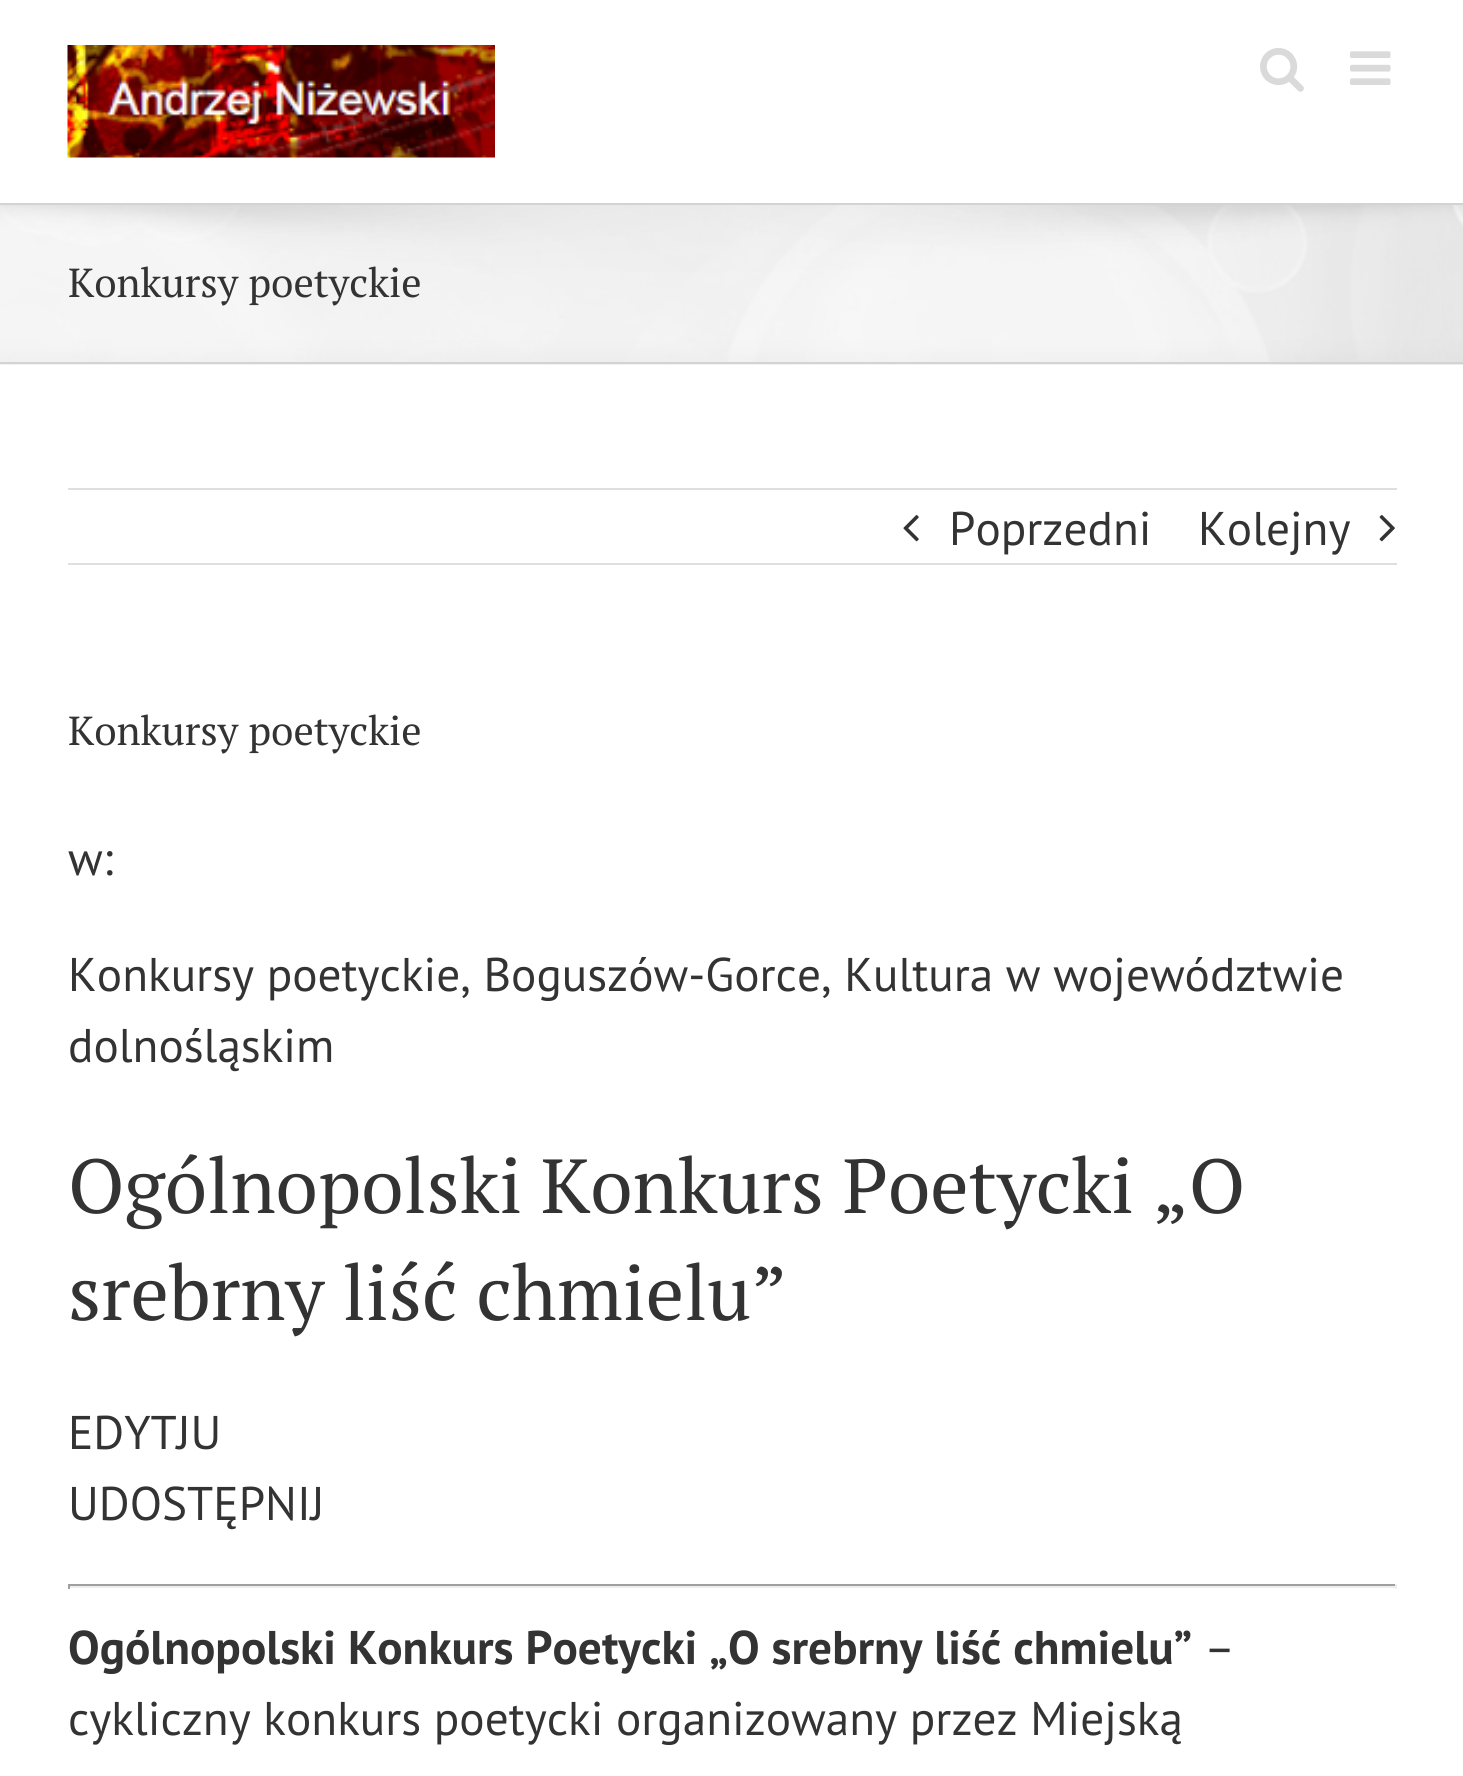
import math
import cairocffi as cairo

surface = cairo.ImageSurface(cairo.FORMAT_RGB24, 1463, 1776)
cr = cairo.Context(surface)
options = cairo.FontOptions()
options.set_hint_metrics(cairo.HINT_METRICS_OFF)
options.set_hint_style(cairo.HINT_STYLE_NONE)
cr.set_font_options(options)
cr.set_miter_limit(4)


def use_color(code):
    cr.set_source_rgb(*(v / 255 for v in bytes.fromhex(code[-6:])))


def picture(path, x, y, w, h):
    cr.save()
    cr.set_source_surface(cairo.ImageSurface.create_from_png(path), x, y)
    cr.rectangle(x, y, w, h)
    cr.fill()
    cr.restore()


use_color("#ffffff")
cr.paint()
picture("img1.png", 67, 45, 428, 113)
picture("img2.png", 1260, 48, 44, 44)
picture("img3.png", 1350, 51, 41, 34)
use_color("#f6f6f6")
cr.rectangle(0, 205, 1463, 160)
cr.fill()
picture("img4.png", 0, 205, 1463, 160)
use_color("#d2d3d4")
cr.rectangle(0, 203, 1463, 2)
cr.fill()
cr.rectangle(0, 362, 1463, 2)
cr.fill()
cr.select_font_face("PT Serif")
cr.set_font_size(40.5)
use_color("#333333")
cr.move_to(68, 297)
cr.show_text("Konkursy poetyckie")
use_color("#e0dede")
cr.rectangle(68, 488, 1329, 2)
cr.fill()
cr.rectangle(68, 563, 1329, 2)
cr.fill()
picture("img5.png", 903, 515, 16, 27)
cr.select_font_face("PT Sans")
cr.set_font_size(47.25)
use_color("#333333")
cr.move_to(949, 545)
cr.show_text("Poprzedni")
cr.move_to(1198, 545)
cr.show_text("Kolejny")
picture("img6.png", 1379, 515, 16, 27)
cr.select_font_face("PT Serif")
cr.set_font_size(40.5)
cr.move_to(68, 745)
cr.show_text("Konkursy poetyckie")
cr.select_font_face("PT Sans")
cr.set_font_size(47.25)
cr.move_to(68, 875)
cr.show_text("w:")
cr.move_to(68, 991)
cr.show_text("Konkursy poetyckie, Boguszów-Gorce, Kultura w województwie")
cr.move_to(68, 1062)
cr.show_text("dolnośląskim")
cr.select_font_face("PT Serif")
cr.set_font_size(76.5)
cr.move_to(68, 1213)
cr.show_text("Ogólnopolski Konkurs Poetycki „O")
cr.move_to(68, 1320)
cr.show_text("srebrny liść chmielu”")
cr.select_font_face("PT Sans")
cr.set_font_size(47.25)
cr.move_to(68, 1449)
cr.show_text("EDYTJU")
cr.move_to(68, 1520)
cr.show_text("UDOSTĘPNIJ")
use_color("#9f9f9f")
cr.rectangle(68, 1584, 1329, 2)
cr.fill()
use_color("#eeeeee")
cr.rectangle(1395, 1584, 2, 5)
cr.fill()
cr.rectangle(68, 1586, 1329, 2)
cr.fill()
use_color("#9f9f9f")
cr.rectangle(68, 1584, 2, 5)
cr.fill()
cr.select_font_face("PT Sans", cairo.FONT_SLANT_NORMAL, cairo.FONT_WEIGHT_BOLD)
use_color("#333333")
cr.move_to(68, 1664)
cr.show_text("Ogólnopolski Konkurs Poetycki „O srebrny liść chmielu”")
cr.select_font_face("PT Sans")
cr.move_to(1204, 1664)
cr.show_text("–")
cr.move_to(68, 1735)
cr.show_text("cykliczny konkurs poetycki organizowany przez Miejską")
surface.write_to_png("result.png")
